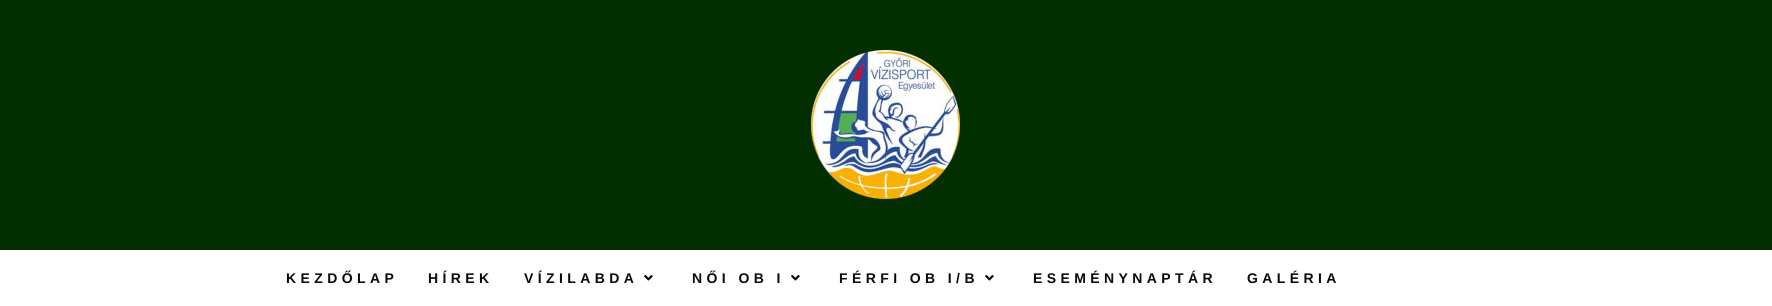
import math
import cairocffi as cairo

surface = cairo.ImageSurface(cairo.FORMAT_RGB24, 1772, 306)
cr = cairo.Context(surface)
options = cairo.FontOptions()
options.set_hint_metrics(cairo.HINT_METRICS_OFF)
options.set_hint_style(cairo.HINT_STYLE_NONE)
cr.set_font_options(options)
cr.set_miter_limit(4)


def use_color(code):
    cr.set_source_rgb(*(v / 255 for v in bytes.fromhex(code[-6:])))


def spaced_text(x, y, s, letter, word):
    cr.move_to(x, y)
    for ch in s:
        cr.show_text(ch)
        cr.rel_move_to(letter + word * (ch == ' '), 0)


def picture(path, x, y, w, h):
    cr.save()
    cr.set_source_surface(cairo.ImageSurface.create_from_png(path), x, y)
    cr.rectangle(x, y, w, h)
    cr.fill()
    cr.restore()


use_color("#022e00")
cr.paint()
picture("img1.png", 811, 50, 149, 149)
use_color("#ffffff")
cr.rectangle(0, 250, 1772, 56)
cr.fill()
cr.select_font_face("Liberation Sans", cairo.FONT_SLANT_NORMAL, cairo.FONT_WEIGHT_BOLD)
cr.set_font_size(14)
use_color("#0a0a0a")
spaced_text(286, 283, "KEZDŐLAP", 4.4, 0)
spaced_text(428, 283, "HÍREK", 4.4, 0)
spaced_text(524, 283, "VÍZILABDA", 4.4, 0)
picture("img2.png", 644, 275, 9, 6)
spaced_text(692, 283, "NŐI OB I", 4.4, 0)
picture("img2.png", 791, 275, 9, 6)
spaced_text(839, 283, "FÉRFI OB I/B", 4.4, 0)
picture("img2.png", 985, 275, 9, 6)
spaced_text(1033, 283, "ESEMÉNYNAPTÁR", 4.4, 0)
spaced_text(1247, 283, "GALÉRIA", 4.4, 0)
surface.write_to_png("result.png")
